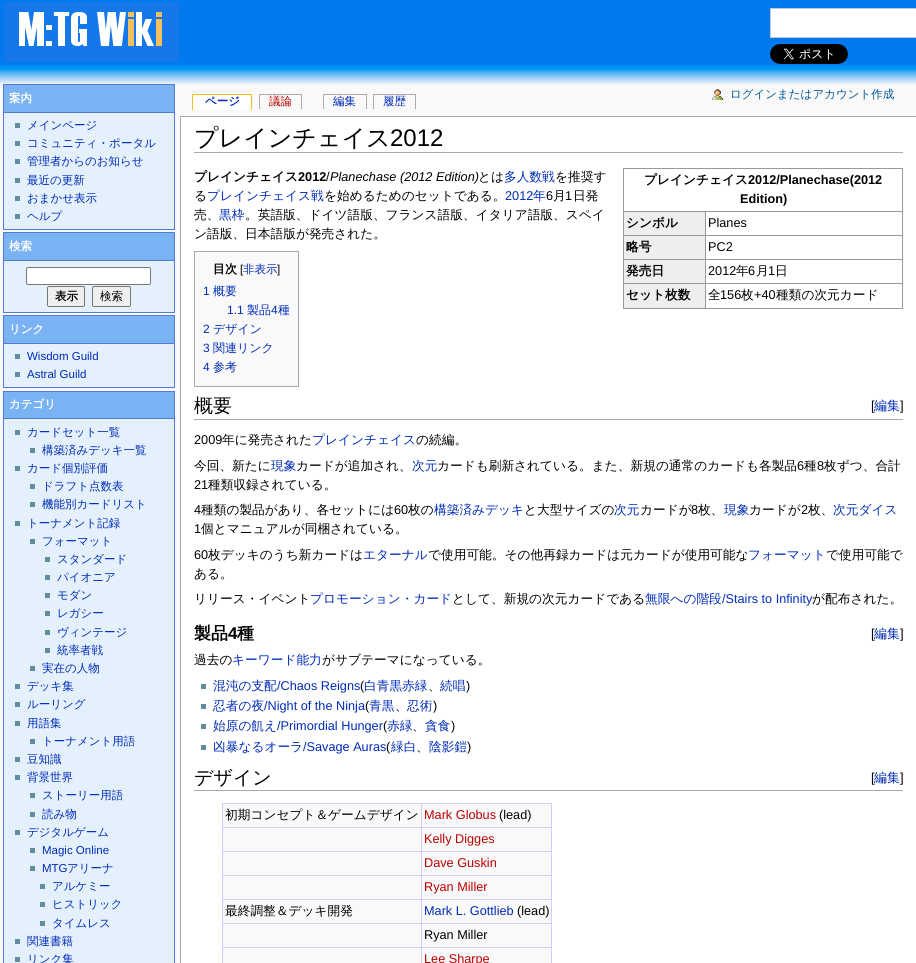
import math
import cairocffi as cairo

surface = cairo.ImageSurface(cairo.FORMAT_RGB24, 916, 963)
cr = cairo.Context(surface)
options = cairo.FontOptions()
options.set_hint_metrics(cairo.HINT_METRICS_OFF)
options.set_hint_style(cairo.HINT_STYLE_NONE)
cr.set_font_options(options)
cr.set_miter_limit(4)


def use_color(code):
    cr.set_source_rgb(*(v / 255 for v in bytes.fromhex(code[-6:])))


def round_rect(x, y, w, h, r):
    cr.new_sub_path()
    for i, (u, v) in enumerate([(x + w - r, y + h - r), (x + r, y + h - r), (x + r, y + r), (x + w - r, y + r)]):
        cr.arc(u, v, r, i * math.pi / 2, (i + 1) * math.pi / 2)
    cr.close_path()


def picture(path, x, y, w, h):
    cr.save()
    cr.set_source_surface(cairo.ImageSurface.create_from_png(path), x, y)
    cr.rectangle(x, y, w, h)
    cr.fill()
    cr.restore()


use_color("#f9f9f9")
cr.paint()
picture("img1.png", 0, 0, 916, 85)
picture("img2.png", 4, 2, 175, 60)
use_color("#ffffff")
cr.rectangle(770.5, 8.5, 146, 29)
cr.fill_preserve()
use_color("#becad7")
cr.set_line_width(1)
cr.stroke()
picture("img3.png", 770, 44, 78, 20)
use_color("#7ab3f4")
cr.rectangle(4, 85, 170, 27)
cr.fill()
use_color("#537ad7")
cr.rectangle(3, 84, 172, 1)
cr.fill()
cr.rectangle(174, 84, 1, 28)
cr.fill()
cr.rectangle(3, 84, 1, 28)
cr.fill()
cr.select_font_face("WenQuanYi Zen Hei", cairo.FONT_SLANT_NORMAL, cairo.FONT_WEIGHT_BOLD)
cr.set_font_size(11.5)
use_color("#ffffff")
cr.move_to(9, 102)
cr.show_text("案内")
use_color("#e5f0fd")
cr.rectangle(3.5, 112.5, 171, 117)
cr.fill_preserve()
use_color("#537ad7")
cr.stroke()
use_color("#638c9c")
cr.rectangle(15, 123, 5, 5)
cr.fill()
cr.select_font_face("WenQuanYi Zen Hei Medium")
use_color("#002bb8")
cr.move_to(27, 129)
cr.show_text("メインページ")
use_color("#638c9c")
cr.rectangle(15, 141, 5, 5)
cr.fill()
use_color("#002bb8")
cr.move_to(27, 147)
cr.show_text("コミュニティ・ポータル")
use_color("#638c9c")
cr.rectangle(15, 159, 5, 5)
cr.fill()
use_color("#002bb8")
cr.move_to(27, 165)
cr.show_text("管理者からのお知らせ")
use_color("#638c9c")
cr.rectangle(15, 178, 5, 5)
cr.fill()
use_color("#002bb8")
cr.move_to(27, 184)
cr.show_text("最近の更新")
use_color("#638c9c")
cr.rectangle(15, 196, 5, 5)
cr.fill()
use_color("#002bb8")
cr.move_to(27, 202)
cr.show_text("おまかせ表示")
use_color("#638c9c")
cr.rectangle(15, 214, 5, 5)
cr.fill()
use_color("#002bb8")
cr.move_to(27, 220)
cr.show_text("ヘルプ")
use_color("#ffffff")
cr.rectangle(193, 95, 58, 15)
cr.fill()
cr.select_font_face("WenQuanYi Zen Hei", cairo.FONT_SLANT_NORMAL, cairo.FONT_WEIGHT_BOLD)
use_color("#002bb8")
cr.move_to(205, 105)
cr.show_text("ページ")
use_color("#fabd23")
cr.rectangle(192, 94, 60, 1)
cr.fill()
cr.rectangle(251, 94, 1, 16)
cr.fill()
cr.rectangle(192, 94, 1, 16)
cr.fill()
cr.select_font_face("WenQuanYi Zen Hei Medium")
use_color("#ba0000")
cr.move_to(269, 105)
cr.show_text("議論")
use_color("#aaaaaa")
cr.rectangle(259, 94, 43, 1)
cr.fill()
cr.rectangle(301, 94, 1, 15)
cr.fill()
cr.rectangle(259, 94, 1, 15)
cr.fill()
use_color("#002bb8")
cr.move_to(333, 105)
cr.show_text("編集")
use_color("#aaaaaa")
cr.rectangle(323, 94, 44, 1)
cr.fill()
cr.rectangle(366, 94, 1, 15)
cr.fill()
cr.rectangle(323, 94, 1, 15)
cr.fill()
use_color("#002bb8")
cr.move_to(383, 105)
cr.show_text("履歴")
use_color("#aaaaaa")
cr.rectangle(373, 94, 43, 1)
cr.fill()
cr.rectangle(415, 94, 1, 15)
cr.fill()
cr.rectangle(373, 94, 1, 15)
cr.fill()
picture("img4.png", 712, 89, 11, 11)
use_color("#005896")
cr.move_to(730, 98)
cr.show_text("ログインまたはアカウント作成")
use_color("#7ab3f4")
cr.rectangle(4, 233, 170, 27)
cr.fill()
use_color("#537ad7")
cr.rectangle(3, 232, 172, 1)
cr.fill()
cr.rectangle(174, 232, 1, 28)
cr.fill()
cr.rectangle(3, 232, 1, 28)
cr.fill()
cr.select_font_face("WenQuanYi Zen Hei", cairo.FONT_SLANT_NORMAL, cairo.FONT_WEIGHT_BOLD)
use_color("#ffffff")
cr.move_to(9, 250)
cr.show_text("検索")
use_color("#e5f0fd")
cr.rectangle(3.5, 260.5, 171, 52)
cr.fill_preserve()
use_color("#537ad7")
cr.stroke()
use_color("#ffffff")
round_rect(26.5, 267.5, 124, 17, 1.5)
cr.fill_preserve()
use_color("#767676")
cr.stroke()
use_color("#efefef")
round_rect(47.5, 286.5, 37, 20, 1.5)
cr.fill_preserve()
use_color("#767676")
cr.stroke()
use_color("#000000")
cr.move_to(55, 300)
cr.show_text("表示")
use_color("#efefef")
round_rect(92.5, 286.5, 38, 20, 1.5)
cr.fill_preserve()
use_color("#767676")
cr.stroke()
cr.select_font_face("WenQuanYi Zen Hei Medium")
use_color("#000000")
cr.move_to(100, 300)
cr.show_text("検索")
use_color("#7ab3f4")
cr.rectangle(4, 316, 170, 27)
cr.fill()
use_color("#537ad7")
cr.rectangle(3, 315, 172, 1)
cr.fill()
cr.rectangle(174, 315, 1, 28)
cr.fill()
cr.rectangle(3, 315, 1, 28)
cr.fill()
cr.select_font_face("WenQuanYi Zen Hei", cairo.FONT_SLANT_NORMAL, cairo.FONT_WEIGHT_BOLD)
use_color("#ffffff")
cr.move_to(9, 333)
cr.show_text("リンク")
use_color("#e5f0fd")
cr.rectangle(3.5, 343.5, 171, 44)
cr.fill_preserve()
use_color("#537ad7")
cr.stroke()
use_color("#638c9c")
cr.rectangle(15, 354, 5, 5)
cr.fill()
cr.select_font_face("Liberation Sans")
use_color("#002bb8")
cr.move_to(27, 360)
cr.show_text("Wisdom Guild")
use_color("#638c9c")
cr.rectangle(15, 372, 5, 5)
cr.fill()
use_color("#002bb8")
cr.move_to(27, 378)
cr.show_text("Astral Guild")
use_color("#7ab3f4")
cr.rectangle(4, 392, 170, 26)
cr.fill()
use_color("#537ad7")
cr.rectangle(3, 391, 172, 1)
cr.fill()
cr.rectangle(174, 391, 1, 27)
cr.fill()
cr.rectangle(3, 391, 1, 27)
cr.fill()
cr.select_font_face("WenQuanYi Zen Hei", cairo.FONT_SLANT_NORMAL, cairo.FONT_WEIGHT_BOLD)
use_color("#ffffff")
cr.move_to(9, 408)
cr.show_text("カテゴリ")
use_color("#e5f0fd")
cr.rectangle(3.5, 418.5, 171, 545)
cr.fill_preserve()
use_color("#537ad7")
cr.stroke()
use_color("#638c9c")
cr.rectangle(15, 430, 5, 5)
cr.fill()
cr.select_font_face("WenQuanYi Zen Hei Medium")
use_color("#002bb8")
cr.move_to(27, 436)
cr.show_text("カードセット一覧")
use_color("#638c9c")
cr.rectangle(30, 448, 5, 5)
cr.fill()
use_color("#002bb8")
cr.move_to(42, 454)
cr.show_text("構築済みデッキ一覧")
use_color("#638c9c")
cr.rectangle(15, 466, 5, 5)
cr.fill()
use_color("#002bb8")
cr.move_to(27, 472)
cr.show_text("カード個別評価")
use_color("#638c9c")
cr.rectangle(30, 484, 5, 5)
cr.fill()
use_color("#002bb8")
cr.move_to(42, 490)
cr.show_text("ドラフト点数表")
use_color("#638c9c")
cr.rectangle(30, 502, 5, 5)
cr.fill()
use_color("#002bb8")
cr.move_to(42, 508)
cr.show_text("機能別カードリスト")
use_color("#638c9c")
cr.rectangle(15, 521, 5, 5)
cr.fill()
use_color("#002bb8")
cr.move_to(27, 527)
cr.show_text("トーナメント記録")
use_color("#638c9c")
cr.rectangle(30, 539, 5, 5)
cr.fill()
use_color("#002bb8")
cr.move_to(42, 545)
cr.show_text("フォーマット")
use_color("#638c9c")
cr.rectangle(45, 557, 5, 5)
cr.fill()
use_color("#002bb8")
cr.move_to(57, 563)
cr.show_text("スタンダード")
use_color("#638c9c")
cr.rectangle(45, 575, 5, 5)
cr.fill()
use_color("#002bb8")
cr.move_to(57, 581)
cr.show_text("パイオニア")
use_color("#638c9c")
cr.rectangle(45, 593, 5, 5)
cr.fill()
use_color("#002bb8")
cr.move_to(57, 599)
cr.show_text("モダン")
use_color("#638c9c")
cr.rectangle(45, 611, 5, 5)
cr.fill()
use_color("#002bb8")
cr.move_to(57, 617)
cr.show_text("レガシー")
use_color("#638c9c")
cr.rectangle(45, 630, 5, 5)
cr.fill()
use_color("#002bb8")
cr.move_to(57, 636)
cr.show_text("ヴィンテージ")
use_color("#638c9c")
cr.rectangle(45, 648, 5, 5)
cr.fill()
use_color("#002bb8")
cr.move_to(57, 654)
cr.show_text("統率者戦")
use_color("#638c9c")
cr.rectangle(30, 666, 5, 5)
cr.fill()
use_color("#002bb8")
cr.move_to(42, 672)
cr.show_text("実在の人物")
use_color("#638c9c")
cr.rectangle(15, 684, 5, 5)
cr.fill()
use_color("#002bb8")
cr.move_to(27, 690)
cr.show_text("デッキ集")
use_color("#638c9c")
cr.rectangle(15, 702, 5, 5)
cr.fill()
use_color("#002bb8")
cr.move_to(27, 708)
cr.show_text("ルーリング")
use_color("#638c9c")
cr.rectangle(15, 721, 5, 5)
cr.fill()
use_color("#002bb8")
cr.move_to(27, 727)
cr.show_text("用語集")
use_color("#638c9c")
cr.rectangle(30, 739, 5, 5)
cr.fill()
use_color("#002bb8")
cr.move_to(42, 745)
cr.show_text("トーナメント用語")
use_color("#638c9c")
cr.rectangle(15, 757, 5, 5)
cr.fill()
use_color("#002bb8")
cr.move_to(27, 763)
cr.show_text("豆知識")
use_color("#638c9c")
cr.rectangle(15, 775, 5, 5)
cr.fill()
use_color("#002bb8")
cr.move_to(27, 781)
cr.show_text("背景世界")
use_color("#638c9c")
cr.rectangle(30, 793, 5, 5)
cr.fill()
use_color("#002bb8")
cr.move_to(42, 799)
cr.show_text("ストーリー用語")
use_color("#638c9c")
cr.rectangle(30, 812, 5, 5)
cr.fill()
use_color("#002bb8")
cr.move_to(42, 818)
cr.show_text("読み物")
use_color("#638c9c")
cr.rectangle(15, 830, 5, 5)
cr.fill()
use_color("#002bb8")
cr.move_to(27, 836)
cr.show_text("デジタルゲーム")
use_color("#638c9c")
cr.rectangle(30, 848, 5, 5)
cr.fill()
cr.select_font_face("Liberation Sans")
use_color("#002bb8")
cr.move_to(42, 854)
cr.show_text("Magic Online")
use_color("#638c9c")
cr.rectangle(30, 866, 5, 5)
cr.fill()
use_color("#002bb8")
cr.move_to(42, 872)
cr.show_text("MTG")
cr.select_font_face("WenQuanYi Zen Hei Medium")
cr.move_to(67, 872)
cr.show_text("アリーナ")
use_color("#638c9c")
cr.rectangle(40, 884, 5, 5)
cr.fill()
use_color("#002bb8")
cr.move_to(52, 890)
cr.show_text("アルケミー")
use_color("#638c9c")
cr.rectangle(40, 902, 5, 5)
cr.fill()
use_color("#002bb8")
cr.move_to(52, 908)
cr.show_text("ヒストリック")
use_color("#638c9c")
cr.rectangle(40, 921, 5, 5)
cr.fill()
use_color("#002bb8")
cr.move_to(52, 927)
cr.show_text("タイムレス")
use_color("#638c9c")
cr.rectangle(15, 939, 5, 5)
cr.fill()
use_color("#002bb8")
cr.move_to(27, 945)
cr.show_text("関連書籍")
use_color("#638c9c")
cr.rectangle(15, 957, 5, 5)
cr.fill()
use_color("#002bb8")
cr.move_to(27, 963)
cr.show_text("リンク集")
use_color("#ffffff")
cr.rectangle(181, 117, 735, 846)
cr.fill()
use_color("#aaaaaa")
cr.rectangle(180, 116, 736, 1)
cr.fill()
cr.rectangle(180, 116, 1, 847)
cr.fill()
cr.rectangle(194, 152, 709, 1)
cr.fill()
cr.set_font_size(24)
use_color("#000000")
cr.move_to(194, 146)
cr.show_text("プレインチェイス")
cr.select_font_face("Liberation Sans")
cr.move_to(390, 146)
cr.show_text("2012")
cr.select_font_face("WenQuanYi Zen Hei", cairo.FONT_SLANT_NORMAL, cairo.FONT_WEIGHT_BOLD)
cr.set_font_size(12.7)
cr.move_to(194, 181)
cr.show_text("プレインチェイス")
cr.select_font_face("Liberation Sans", cairo.FONT_SLANT_NORMAL, cairo.FONT_WEIGHT_BOLD)
cr.move_to(298, 181)
cr.show_text("2012")
cr.select_font_face("Liberation Sans")
cr.move_to(326, 181)
cr.show_text("/")
cr.select_font_face("Liberation Sans", cairo.FONT_SLANT_ITALIC)
cr.move_to(330, 181)
cr.show_text("Planechase (2012 Edition)")
cr.select_font_face("WenQuanYi Zen Hei Medium")
cr.move_to(478, 181)
cr.show_text("とは")
use_color("#002bb8")
cr.move_to(504, 181)
cr.show_text("多人数戦")
use_color("#000000")
cr.move_to(555, 181)
cr.show_text("を推奨す")
cr.move_to(194, 200)
cr.show_text("る")
use_color("#002bb8")
cr.move_to(207, 200)
cr.show_text("プレインチェイス戦")
use_color("#000000")
cr.move_to(324, 200)
cr.show_text("を始めるためのセットである。")
cr.select_font_face("Liberation Sans")
use_color("#002bb8")
cr.move_to(505, 200)
cr.show_text("2012")
cr.select_font_face("WenQuanYi Zen Hei Medium")
cr.move_to(533, 200)
cr.show_text("年")
cr.select_font_face("Liberation Sans")
use_color("#000000")
cr.move_to(546, 200)
cr.show_text("6")
cr.select_font_face("WenQuanYi Zen Hei Medium")
cr.move_to(553, 200)
cr.show_text("月")
cr.select_font_face("Liberation Sans")
cr.move_to(565, 200)
cr.show_text("1")
cr.select_font_face("WenQuanYi Zen Hei Medium")
cr.move_to(573, 200)
cr.show_text("日発")
cr.move_to(194, 219)
cr.show_text("売、")
use_color("#002bb8")
cr.move_to(219, 219)
cr.show_text("黒枠")
use_color("#000000")
cr.move_to(245, 219)
cr.show_text("。英語版、ドイツ語版、フランス語版、イタリア語版、スペイ")
cr.move_to(194, 238)
cr.show_text("ン語版、日本語版が発売された。")
use_color("#999999")
cr.rectangle(623, 168, 280, 1)
cr.fill()
cr.rectangle(902, 168, 1, 141)
cr.fill()
cr.rectangle(623, 308, 280, 1)
cr.fill()
cr.rectangle(623, 168, 1, 141)
cr.fill()
cr.select_font_face("WenQuanYi Zen Hei", cairo.FONT_SLANT_NORMAL, cairo.FONT_WEIGHT_BOLD)
use_color("#000000")
cr.move_to(644, 184)
cr.show_text("プレインチェイス")
cr.select_font_face("Liberation Sans", cairo.FONT_SLANT_NORMAL, cairo.FONT_WEIGHT_BOLD)
cr.move_to(748, 184)
cr.show_text("2012/Planechase(2012")
cr.move_to(740, 203)
cr.show_text("Edition)")
use_color("#eeeeee")
cr.rectangle(624, 212, 81, 23)
cr.fill()
use_color("#999999")
cr.rectangle(705, 211, 198, 1)
cr.fill()
cr.rectangle(705, 235, 198, 1)
cr.fill()
cr.rectangle(705, 259, 198, 1)
cr.fill()
cr.rectangle(705, 283, 198, 1)
cr.fill()
cr.rectangle(705, 283, 1, 26)
cr.fill()
cr.rectangle(623, 283, 83, 1)
cr.fill()
cr.rectangle(705, 259, 1, 25)
cr.fill()
cr.rectangle(623, 259, 83, 1)
cr.fill()
cr.rectangle(705, 235, 1, 25)
cr.fill()
cr.rectangle(623, 235, 83, 1)
cr.fill()
cr.rectangle(705, 211, 1, 25)
cr.fill()
cr.rectangle(623, 211, 83, 1)
cr.fill()
cr.select_font_face("WenQuanYi Zen Hei", cairo.FONT_SLANT_NORMAL, cairo.FONT_WEIGHT_BOLD)
use_color("#000000")
cr.move_to(626, 227)
cr.show_text("シンボル")
cr.select_font_face("Liberation Sans")
cr.move_to(708, 227)
cr.show_text("Planes")
use_color("#eeeeee")
cr.rectangle(624, 236, 81, 23)
cr.fill()
cr.select_font_face("WenQuanYi Zen Hei", cairo.FONT_SLANT_NORMAL, cairo.FONT_WEIGHT_BOLD)
use_color("#000000")
cr.move_to(626, 251)
cr.show_text("略号")
cr.select_font_face("Liberation Sans")
cr.move_to(708, 251)
cr.show_text("PC2")
use_color("#eeeeee")
cr.rectangle(624, 260, 81, 23)
cr.fill()
cr.select_font_face("WenQuanYi Zen Hei", cairo.FONT_SLANT_NORMAL, cairo.FONT_WEIGHT_BOLD)
use_color("#000000")
cr.move_to(626, 275)
cr.show_text("発売日")
cr.select_font_face("Liberation Sans")
cr.move_to(708, 275)
cr.show_text("2012")
cr.select_font_face("WenQuanYi Zen Hei Medium")
cr.move_to(736, 275)
cr.show_text("年")
cr.select_font_face("Liberation Sans")
cr.move_to(748, 275)
cr.show_text("6")
cr.select_font_face("WenQuanYi Zen Hei Medium")
cr.move_to(756, 275)
cr.show_text("月")
cr.select_font_face("Liberation Sans")
cr.move_to(768, 275)
cr.show_text("1")
cr.select_font_face("WenQuanYi Zen Hei Medium")
cr.move_to(775, 275)
cr.show_text("日")
use_color("#eeeeee")
cr.rectangle(624, 284, 81, 24)
cr.fill()
cr.select_font_face("WenQuanYi Zen Hei", cairo.FONT_SLANT_NORMAL, cairo.FONT_WEIGHT_BOLD)
use_color("#000000")
cr.move_to(626, 299)
cr.show_text("セット枚数")
cr.select_font_face("WenQuanYi Zen Hei Medium")
cr.move_to(708, 299)
cr.show_text("全")
cr.select_font_face("Liberation Sans")
cr.move_to(720, 299)
cr.show_text("156")
cr.select_font_face("WenQuanYi Zen Hei Medium")
cr.move_to(741, 299)
cr.show_text("枚")
cr.select_font_face("Liberation Sans")
cr.move_to(754, 299)
cr.show_text("+40")
cr.select_font_face("WenQuanYi Zen Hei Medium")
cr.move_to(776, 299)
cr.show_text("種類の次元カード")
use_color("#f9f9f9")
cr.rectangle(194.5, 251.5, 104, 135)
cr.fill_preserve()
use_color("#aaaaaa")
cr.stroke()
cr.select_font_face("WenQuanYi Zen Hei", cairo.FONT_SLANT_NORMAL, cairo.FONT_WEIGHT_BOLD)
cr.set_font_size(12)
use_color("#000000")
cr.move_to(213, 273)
cr.show_text("目次")
cr.select_font_face("Liberation Sans")
cr.set_font_size(11.5)
cr.move_to(240, 273)
cr.show_text("[")
cr.select_font_face("WenQuanYi Zen Hei Medium")
use_color("#002bb8")
cr.move_to(243, 273)
cr.show_text("非表示")
cr.select_font_face("Liberation Sans")
use_color("#000000")
cr.move_to(277, 273)
cr.show_text("]")
cr.set_font_size(12)
use_color("#002bb8")
cr.move_to(203, 295)
cr.show_text("1")
cr.select_font_face("WenQuanYi Zen Hei Medium")
cr.move_to(213, 295)
cr.show_text("概要")
cr.select_font_face("Liberation Sans")
cr.move_to(227, 314)
cr.show_text("1.1")
cr.select_font_face("WenQuanYi Zen Hei Medium")
cr.move_to(247, 314)
cr.show_text("製品")
cr.select_font_face("Liberation Sans")
cr.move_to(271, 314)
cr.show_text("4")
cr.select_font_face("WenQuanYi Zen Hei Medium")
cr.move_to(278, 314)
cr.show_text("種")
cr.select_font_face("Liberation Sans")
cr.move_to(203, 333)
cr.show_text("2")
cr.select_font_face("WenQuanYi Zen Hei Medium")
cr.move_to(213, 333)
cr.show_text("デザイン")
cr.select_font_face("Liberation Sans")
cr.move_to(203, 352)
cr.show_text("3")
cr.select_font_face("WenQuanYi Zen Hei Medium")
cr.move_to(213, 352)
cr.show_text("関連リンク")
cr.select_font_face("Liberation Sans")
cr.move_to(203, 371)
cr.show_text("4")
cr.select_font_face("WenQuanYi Zen Hei Medium")
cr.move_to(213, 371)
cr.show_text("参考")
use_color("#aaaaaa")
cr.rectangle(194, 419, 709, 1)
cr.fill()
cr.set_font_size(19)
use_color("#000000")
cr.move_to(194, 412)
cr.show_text("概要")
cr.select_font_face("Liberation Sans")
cr.set_font_size(13)
cr.move_to(871, 410)
cr.show_text("[")
cr.select_font_face("WenQuanYi Zen Hei Medium")
use_color("#002bb8")
cr.move_to(874, 410)
cr.show_text("編集")
cr.select_font_face("Liberation Sans")
use_color("#000000")
cr.move_to(900, 410)
cr.show_text("]")
cr.set_font_size(12.7)
cr.move_to(194, 444)
cr.show_text("2009")
cr.select_font_face("WenQuanYi Zen Hei Medium")
cr.move_to(222, 444)
cr.show_text("年に発売された")
use_color("#002bb8")
cr.move_to(312, 444)
cr.show_text("プレインチェイス")
use_color("#000000")
cr.move_to(416, 444)
cr.show_text("の続編。")
cr.move_to(194, 470)
cr.show_text("今回、新たに")
use_color("#002bb8")
cr.move_to(271, 470)
cr.show_text("現象")
use_color("#000000")
cr.move_to(296, 470)
cr.show_text("カードが追加され、")
use_color("#002bb8")
cr.move_to(412, 470)
cr.show_text("次元")
use_color("#000000")
cr.move_to(437, 470)
cr.show_text("カードも刷新されている。また、新規の通常のカードも各製品")
cr.select_font_face("Liberation Sans")
cr.move_to(797, 470)
cr.show_text("6")
cr.select_font_face("WenQuanYi Zen Hei Medium")
cr.move_to(804, 470)
cr.show_text("種")
cr.select_font_face("Liberation Sans")
cr.move_to(817, 470)
cr.show_text("8")
cr.select_font_face("WenQuanYi Zen Hei Medium")
cr.move_to(824, 470)
cr.show_text("枚ずつ、合計")
cr.select_font_face("Liberation Sans")
cr.move_to(194, 489)
cr.show_text("21")
cr.select_font_face("WenQuanYi Zen Hei Medium")
cr.move_to(208, 489)
cr.show_text("種類収録されている。")
cr.select_font_face("Liberation Sans")
cr.move_to(194, 514)
cr.show_text("4")
cr.select_font_face("WenQuanYi Zen Hei Medium")
cr.move_to(201, 514)
cr.show_text("種類の製品があり、各セットには")
cr.select_font_face("Liberation Sans")
cr.move_to(394, 514)
cr.show_text("60")
cr.select_font_face("WenQuanYi Zen Hei Medium")
cr.move_to(408, 514)
cr.show_text("枚の")
use_color("#002bb8")
cr.move_to(434, 514)
cr.show_text("構築済みデッキ")
use_color("#000000")
cr.move_to(524, 514)
cr.show_text("と大型サイズの")
use_color("#002bb8")
cr.move_to(614, 514)
cr.show_text("次元")
use_color("#000000")
cr.move_to(640, 514)
cr.show_text("カードが")
cr.select_font_face("Liberation Sans")
cr.move_to(691, 514)
cr.show_text("8")
cr.select_font_face("WenQuanYi Zen Hei Medium")
cr.move_to(698, 514)
cr.show_text("枚、")
use_color("#002bb8")
cr.move_to(724, 514)
cr.show_text("現象")
use_color("#000000")
cr.move_to(749, 514)
cr.show_text("カードが")
cr.select_font_face("Liberation Sans")
cr.move_to(801, 514)
cr.show_text("2")
cr.select_font_face("WenQuanYi Zen Hei Medium")
cr.move_to(808, 514)
cr.show_text("枚、")
use_color("#002bb8")
cr.move_to(833, 514)
cr.show_text("次元ダイス")
cr.select_font_face("Liberation Sans")
use_color("#000000")
cr.move_to(194, 533)
cr.show_text("1")
cr.select_font_face("WenQuanYi Zen Hei Medium")
cr.move_to(201, 533)
cr.show_text("個とマニュアルが同梱されている。")
cr.select_font_face("Liberation Sans")
cr.move_to(194, 559)
cr.show_text("60")
cr.select_font_face("WenQuanYi Zen Hei Medium")
cr.move_to(208, 559)
cr.show_text("枚デッキのうち新カードは")
use_color("#002bb8")
cr.move_to(363, 559)
cr.show_text("エターナル")
use_color("#000000")
cr.move_to(428, 559)
cr.show_text("で使用可能。その他再録カードは元カードが使用可能な")
use_color("#002bb8")
cr.move_to(748, 559)
cr.show_text("フォーマット")
use_color("#000000")
cr.move_to(826, 559)
cr.show_text("で使用可能で")
cr.move_to(194, 578)
cr.show_text("ある。")
cr.move_to(194, 603)
cr.show_text("リリース・イベント")
use_color("#002bb8")
cr.move_to(310, 603)
cr.show_text("プロモーション・カード")
use_color("#000000")
cr.move_to(452, 603)
cr.show_text("として、新規の次元カードである")
use_color("#002bb8")
cr.move_to(645, 603)
cr.show_text("無限への階段")
cr.select_font_face("Liberation Sans")
cr.move_to(722, 603)
cr.show_text("/Stairs to Infinity")
cr.select_font_face("WenQuanYi Zen Hei Medium")
use_color("#000000")
cr.move_to(812, 603)
cr.show_text("が配布された。")
cr.select_font_face("WenQuanYi Zen Hei", cairo.FONT_SLANT_NORMAL, cairo.FONT_WEIGHT_BOLD)
cr.set_font_size(17)
cr.move_to(194, 639)
cr.show_text("製品")
cr.select_font_face("Liberation Sans", cairo.FONT_SLANT_NORMAL, cairo.FONT_WEIGHT_BOLD)
cr.move_to(228, 639)
cr.show_text("4")
cr.select_font_face("WenQuanYi Zen Hei", cairo.FONT_SLANT_NORMAL, cairo.FONT_WEIGHT_BOLD)
cr.move_to(237, 639)
cr.show_text("種")
cr.select_font_face("Liberation Sans")
cr.set_font_size(13)
cr.move_to(871, 638)
cr.show_text("[")
cr.select_font_face("WenQuanYi Zen Hei Medium")
use_color("#002bb8")
cr.move_to(874, 638)
cr.show_text("編集")
cr.select_font_face("Liberation Sans")
use_color("#000000")
cr.move_to(900, 638)
cr.show_text("]")
cr.select_font_face("WenQuanYi Zen Hei Medium")
cr.set_font_size(12.7)
cr.move_to(194, 664)
cr.show_text("過去の")
use_color("#002bb8")
cr.move_to(232, 664)
cr.show_text("キーワード能力")
use_color("#000000")
cr.move_to(322, 664)
cr.show_text("がサブテーマになっている。")
use_color("#638c9c")
cr.rectangle(201, 684, 5, 5)
cr.fill()
use_color("#002bb8")
cr.move_to(213, 690)
cr.show_text("混沌の支配")
cr.select_font_face("Liberation Sans")
cr.move_to(277, 690)
cr.show_text("/Chaos Reigns")
use_color("#000000")
cr.move_to(360, 690)
cr.show_text("(")
cr.select_font_face("WenQuanYi Zen Hei Medium")
use_color("#002bb8")
cr.move_to(364, 690)
cr.show_text("白青黒赤緑")
use_color("#000000")
cr.move_to(428, 690)
cr.show_text("、")
use_color("#002bb8")
cr.move_to(440, 690)
cr.show_text("続唱")
cr.select_font_face("Liberation Sans")
use_color("#000000")
cr.move_to(466, 690)
cr.show_text(")")
use_color("#638c9c")
cr.rectangle(201, 704, 5, 5)
cr.fill()
cr.select_font_face("WenQuanYi Zen Hei Medium")
use_color("#002bb8")
cr.move_to(213, 710)
cr.show_text("忍者の夜")
cr.select_font_face("Liberation Sans")
cr.move_to(264, 710)
cr.show_text("/Night of the Ninja")
use_color("#000000")
cr.move_to(365, 710)
cr.show_text("(")
cr.select_font_face("WenQuanYi Zen Hei Medium")
use_color("#002bb8")
cr.move_to(369, 710)
cr.show_text("青黒")
use_color("#000000")
cr.move_to(395, 710)
cr.show_text("、")
use_color("#002bb8")
cr.move_to(407, 710)
cr.show_text("忍術")
cr.select_font_face("Liberation Sans")
use_color("#000000")
cr.move_to(433, 710)
cr.show_text(")")
use_color("#638c9c")
cr.rectangle(201, 724, 5, 5)
cr.fill()
cr.select_font_face("WenQuanYi Zen Hei Medium")
use_color("#002bb8")
cr.move_to(213, 730)
cr.show_text("始原の飢え")
cr.select_font_face("Liberation Sans")
cr.move_to(277, 730)
cr.show_text("/Primordial Hunger")
use_color("#000000")
cr.move_to(383, 730)
cr.show_text("(")
cr.select_font_face("WenQuanYi Zen Hei Medium")
use_color("#002bb8")
cr.move_to(387, 730)
cr.show_text("赤緑")
use_color("#000000")
cr.move_to(412, 730)
cr.show_text("、")
use_color("#002bb8")
cr.move_to(425, 730)
cr.show_text("貪食")
cr.select_font_face("Liberation Sans")
use_color("#000000")
cr.move_to(451, 730)
cr.show_text(")")
use_color("#638c9c")
cr.rectangle(201, 745, 5, 5)
cr.fill()
cr.select_font_face("WenQuanYi Zen Hei Medium")
use_color("#002bb8")
cr.move_to(213, 751)
cr.show_text("凶暴なるオーラ")
cr.select_font_face("Liberation Sans")
cr.move_to(303, 751)
cr.show_text("/Savage Auras")
use_color("#000000")
cr.move_to(386, 751)
cr.show_text("(")
cr.select_font_face("WenQuanYi Zen Hei Medium")
use_color("#002bb8")
cr.move_to(391, 751)
cr.show_text("緑白")
use_color("#000000")
cr.move_to(416, 751)
cr.show_text("、")
use_color("#002bb8")
cr.move_to(429, 751)
cr.show_text("陰影鎧")
cr.select_font_face("Liberation Sans")
use_color("#000000")
cr.move_to(467, 751)
cr.show_text(")")
use_color("#aaaaaa")
cr.rectangle(194, 790, 709, 1)
cr.fill()
cr.select_font_face("WenQuanYi Zen Hei Medium")
cr.set_font_size(19)
use_color("#000000")
cr.move_to(194, 784)
cr.show_text("デザイン")
cr.select_font_face("Liberation Sans")
cr.set_font_size(13)
cr.move_to(871, 782)
cr.show_text("[")
cr.select_font_face("WenQuanYi Zen Hei Medium")
use_color("#002bb8")
cr.move_to(874, 782)
cr.show_text("編集")
cr.select_font_face("Liberation Sans")
use_color("#000000")
cr.move_to(900, 782)
cr.show_text("]")
use_color("#f9f9f9")
cr.rectangle(223, 804, 328, 159)
cr.fill()
use_color("#ceceff")
cr.rectangle(421, 803, 131, 1)
cr.fill()
cr.rectangle(421, 827, 131, 1)
cr.fill()
cr.rectangle(421, 851, 131, 1)
cr.fill()
cr.rectangle(421, 875, 131, 1)
cr.fill()
cr.rectangle(421, 899, 131, 1)
cr.fill()
cr.rectangle(421, 923, 131, 1)
cr.fill()
cr.rectangle(421, 947, 131, 1)
cr.fill()
cr.rectangle(421, 947, 1, 16)
cr.fill()
cr.rectangle(222, 947, 200, 1)
cr.fill()
cr.rectangle(421, 923, 1, 25)
cr.fill()
cr.rectangle(222, 923, 200, 1)
cr.fill()
cr.rectangle(421, 899, 1, 25)
cr.fill()
cr.rectangle(222, 899, 200, 1)
cr.fill()
cr.rectangle(421, 875, 1, 25)
cr.fill()
cr.rectangle(222, 875, 200, 1)
cr.fill()
cr.rectangle(421, 851, 1, 25)
cr.fill()
cr.rectangle(222, 851, 200, 1)
cr.fill()
cr.rectangle(421, 827, 1, 25)
cr.fill()
cr.rectangle(222, 827, 200, 1)
cr.fill()
cr.rectangle(421, 803, 1, 25)
cr.fill()
cr.rectangle(222, 803, 200, 1)
cr.fill()
cr.rectangle(222, 947, 1, 16)
cr.fill()
cr.rectangle(222, 923, 1, 25)
cr.fill()
cr.rectangle(222, 899, 1, 25)
cr.fill()
cr.rectangle(222, 875, 1, 25)
cr.fill()
cr.rectangle(222, 851, 1, 25)
cr.fill()
cr.rectangle(222, 827, 1, 25)
cr.fill()
cr.rectangle(222, 803, 1, 25)
cr.fill()
cr.select_font_face("WenQuanYi Zen Hei Medium")
cr.set_font_size(12.7)
use_color("#000000")
cr.move_to(225, 819)
cr.show_text("初期コンセプト＆ゲームデザイン")
use_color("#ceceff")
cr.rectangle(551, 947, 1, 16)
cr.fill()
cr.rectangle(551, 923, 1, 25)
cr.fill()
cr.rectangle(551, 899, 1, 25)
cr.fill()
cr.rectangle(551, 875, 1, 25)
cr.fill()
cr.rectangle(551, 851, 1, 25)
cr.fill()
cr.rectangle(551, 827, 1, 25)
cr.fill()
cr.rectangle(551, 803, 1, 25)
cr.fill()
cr.select_font_face("Liberation Sans")
use_color("#ba0000")
cr.move_to(424, 819)
cr.show_text("Mark Globus")
use_color("#000000")
cr.move_to(499, 819)
cr.show_text("(lead)")
use_color("#ba0000")
cr.move_to(424, 843)
cr.show_text("Kelly Digges")
cr.move_to(424, 867)
cr.show_text("Dave Guskin")
cr.move_to(424, 891)
cr.show_text("Ryan Miller")
cr.select_font_face("WenQuanYi Zen Hei Medium")
use_color("#000000")
cr.move_to(225, 915)
cr.show_text("最終調整＆デッキ開発")
cr.select_font_face("Liberation Sans")
use_color("#002bb8")
cr.move_to(424, 915)
cr.show_text("Mark L. Gottlieb")
use_color("#000000")
cr.move_to(517, 915)
cr.show_text("(lead)")
cr.move_to(424, 939)
cr.show_text("Ryan Miller")
use_color("#ba0000")
cr.move_to(424, 963)
cr.show_text("Lee Sharpe")
surface.write_to_png("result.png")
